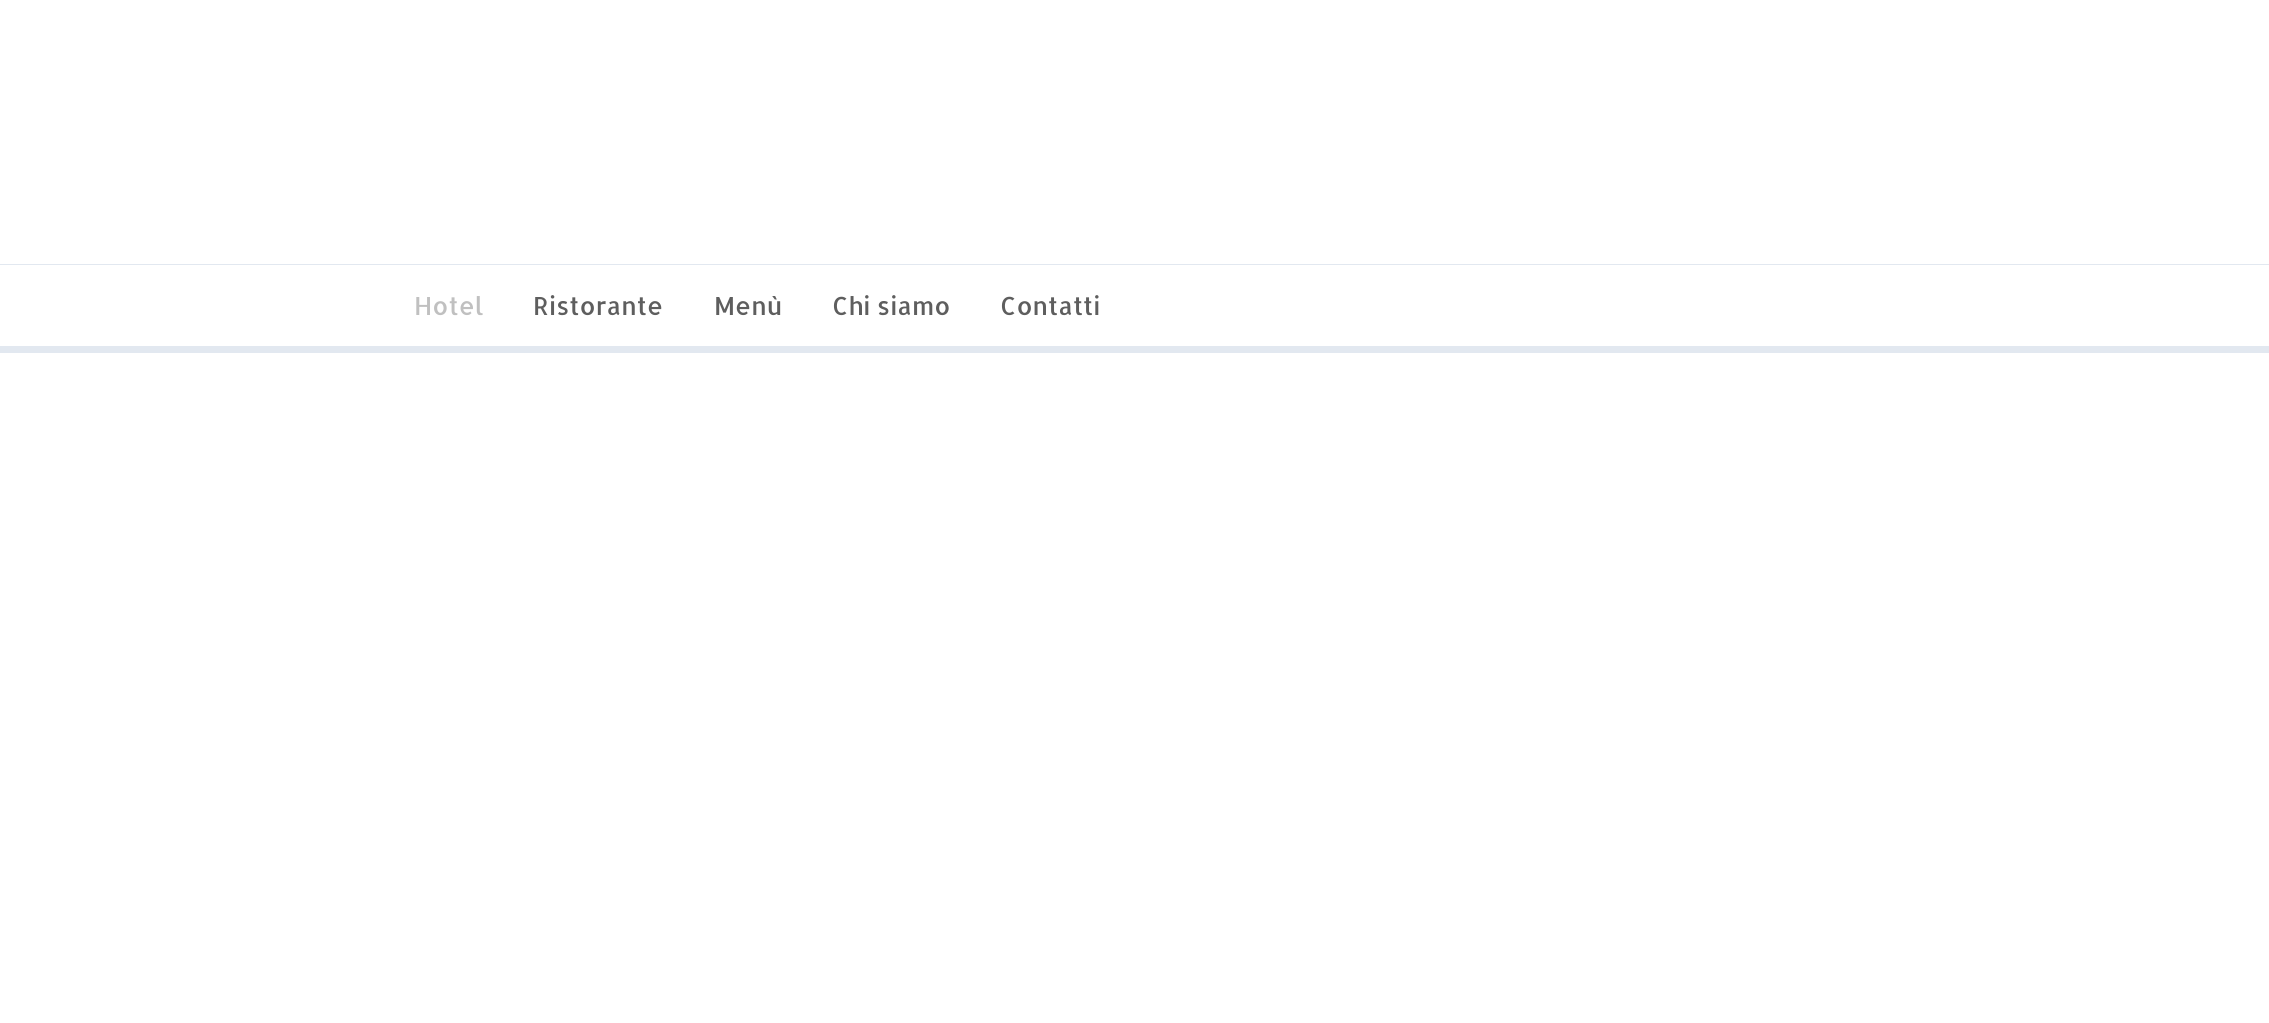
import math
import cairocffi as cairo

surface = cairo.ImageSurface(cairo.FORMAT_RGB24, 2269, 1023)
cr = cairo.Context(surface)
options = cairo.FontOptions()
options.set_hint_metrics(cairo.HINT_METRICS_OFF)
options.set_hint_style(cairo.HINT_STYLE_NONE)
cr.set_font_options(options)
cr.set_miter_limit(4)


def use_color(code):
    cr.set_source_rgb(*(v / 255 for v in bytes.fromhex(code[-6:])))


use_color("#ffffff")
cr.paint()
use_color("#e2e8f0")
cr.rectangle(0, 264, 2269, 1)
cr.fill()
cr.rectangle(0, 346, 2269, 7)
cr.fill()
cr.select_font_face("Allerta")
cr.set_font_size(25)
use_color("#c0c0c0")
cr.move_to(414, 315)
cr.show_text("Hotel")
use_color("#5e5e5e")
cr.move_to(533, 315)
cr.show_text("Ristorante")
cr.move_to(714, 315)
cr.show_text("Menù")
cr.move_to(832, 315)
cr.show_text("Chi siamo")
cr.move_to(1000, 315)
cr.show_text("Contatti")
surface.write_to_png("result.png")
